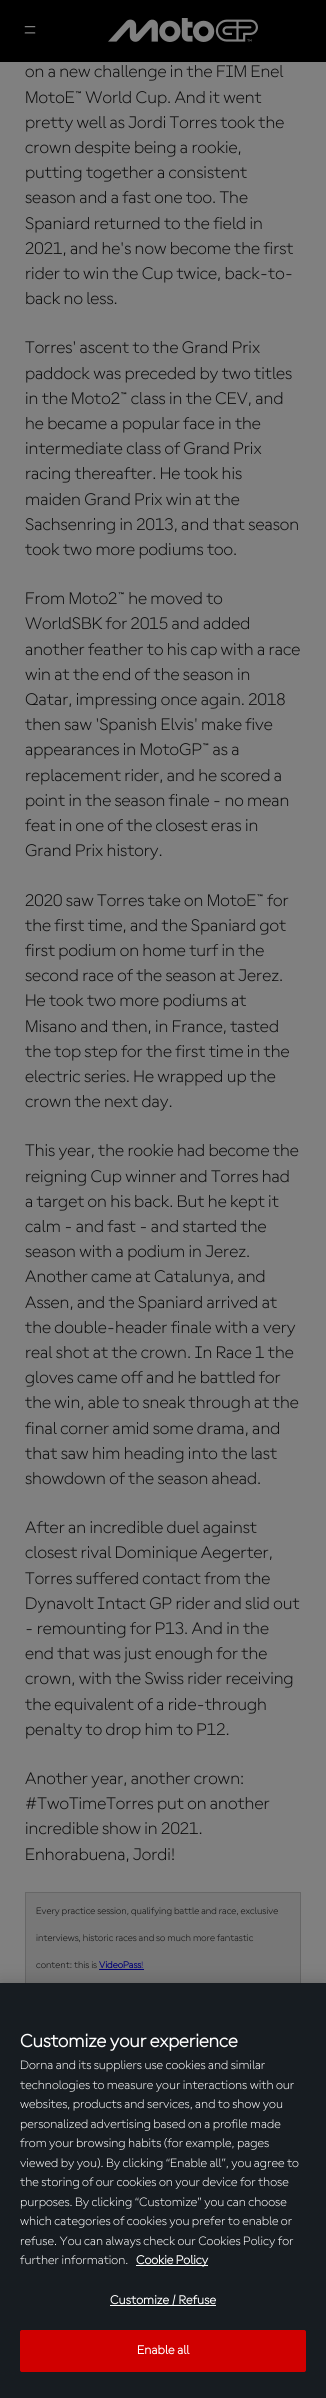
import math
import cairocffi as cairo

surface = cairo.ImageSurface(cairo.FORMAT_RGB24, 326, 2398)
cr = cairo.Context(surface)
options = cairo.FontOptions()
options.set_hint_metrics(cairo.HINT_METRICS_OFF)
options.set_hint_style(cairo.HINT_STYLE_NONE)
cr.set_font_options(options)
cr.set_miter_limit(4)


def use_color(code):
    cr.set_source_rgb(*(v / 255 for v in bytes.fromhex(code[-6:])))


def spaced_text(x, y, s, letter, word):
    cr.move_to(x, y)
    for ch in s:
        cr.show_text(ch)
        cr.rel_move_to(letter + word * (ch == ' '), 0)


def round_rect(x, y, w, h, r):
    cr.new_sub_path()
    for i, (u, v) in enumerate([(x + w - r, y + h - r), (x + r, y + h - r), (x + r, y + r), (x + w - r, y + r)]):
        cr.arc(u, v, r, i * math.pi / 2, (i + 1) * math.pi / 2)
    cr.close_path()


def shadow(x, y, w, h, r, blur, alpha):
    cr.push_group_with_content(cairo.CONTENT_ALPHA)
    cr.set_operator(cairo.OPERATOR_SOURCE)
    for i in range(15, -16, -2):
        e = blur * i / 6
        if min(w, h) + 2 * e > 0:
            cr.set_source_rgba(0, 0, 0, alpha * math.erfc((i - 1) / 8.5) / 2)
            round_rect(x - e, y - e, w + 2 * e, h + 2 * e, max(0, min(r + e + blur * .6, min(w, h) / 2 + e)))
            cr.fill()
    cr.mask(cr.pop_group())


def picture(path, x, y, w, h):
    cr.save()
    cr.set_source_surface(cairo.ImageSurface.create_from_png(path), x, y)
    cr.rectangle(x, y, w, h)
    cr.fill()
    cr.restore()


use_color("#808080")
cr.paint()
use_color("#000000")
cr.rectangle(0, 0, 326, 62)
cr.fill()
picture("img1.png", 24, 26, 12, 8)
picture("img2.png", 108, 18, 150, 24)
cr.select_font_face("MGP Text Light")
cr.set_font_size(18)
use_color("#0b0b0b")
cr.move_to(25, 77)
cr.show_text("on a new challenge in the FIM Enel")
cr.move_to(25, 103)
cr.show_text("MotoE™ World Cup. And it went")
cr.move_to(25, 128)
cr.show_text("pretty well as Jordi Torres took the")
cr.move_to(25, 153)
cr.show_text("crown despite being a rookie,")
cr.move_to(25, 178)
cr.show_text("putting together a consistent")
cr.move_to(25, 203)
cr.show_text("season and a fast one too. The")
cr.move_to(25, 229)
cr.show_text("Spaniard returned to the field in")
cr.move_to(25, 254)
cr.show_text("2021, and he's now become the first")
cr.move_to(25, 279)
cr.show_text("rider to win the Cup twice, back-to-")
cr.move_to(25, 304)
cr.show_text("back no less.")
cr.move_to(25, 353)
cr.show_text("Torres' ascent to the Grand Prix")
cr.move_to(25, 379)
cr.show_text("paddock was preceded by two titles")
cr.move_to(25, 404)
cr.show_text("in the Moto2™ class in the CEV, and")
cr.move_to(25, 429)
cr.show_text("he became a popular face in the")
cr.move_to(25, 454)
cr.show_text("intermediate class of Grand Prix")
cr.move_to(25, 479)
cr.show_text("racing thereafter. He took his")
cr.move_to(25, 505)
cr.show_text("maiden Grand Prix win at the")
cr.move_to(25, 530)
cr.show_text("Sachsenring in 2013, and that season")
cr.move_to(25, 555)
cr.show_text("took two more podiums too.")
cr.move_to(25, 604)
cr.show_text("From Moto2™ he moved to")
cr.move_to(25, 629)
cr.show_text("WorldSBK for 2015 and added")
cr.move_to(25, 655)
cr.show_text("another feather to his cap with a race")
cr.move_to(25, 680)
cr.show_text("win at the end of the season in")
cr.move_to(25, 705)
cr.show_text("Qatar, impressing once again. 2018")
cr.move_to(25, 730)
cr.show_text("then saw 'Spanish Elvis' make five")
cr.move_to(25, 755)
cr.show_text("appearances in MotoGP™ as a")
cr.move_to(25, 781)
cr.show_text("replacement rider, and he scored a")
cr.move_to(25, 806)
cr.show_text("point in the season finale - no mean")
cr.move_to(25, 831)
cr.show_text("feat in one of the closest eras in")
cr.move_to(25, 856)
cr.show_text("Grand Prix history.")
cr.move_to(25, 906)
cr.show_text("2020 saw Torres take on MotoE™ for")
cr.move_to(25, 931)
cr.show_text("the first time, and the Spaniard got")
cr.move_to(25, 956)
cr.show_text("first podium on home turf in the")
cr.move_to(25, 981)
cr.show_text("second race of the season at Jerez.")
cr.move_to(25, 1006)
cr.show_text("He took two more podiums at")
cr.move_to(25, 1032)
cr.show_text("Misano and then, in France, tasted")
cr.move_to(25, 1057)
cr.show_text("the top step for the first time in the")
cr.move_to(25, 1082)
cr.show_text("electric series. He wrapped up the")
cr.move_to(25, 1107)
cr.show_text("crown the next day.")
cr.move_to(25, 1156)
cr.show_text("This year, the rookie had become the")
cr.move_to(25, 1182)
cr.show_text("reigning Cup winner and Torres had")
cr.move_to(25, 1207)
cr.show_text("a target on his back. But he kept it")
cr.move_to(25, 1232)
cr.show_text("calm - and fast - and started the")
cr.move_to(25, 1257)
cr.show_text("season with a podium in Jerez.")
cr.move_to(25, 1282)
cr.show_text("Another came at Catalunya, and")
cr.move_to(25, 1308)
cr.show_text("Assen, and the Spaniard arrived at")
cr.move_to(25, 1333)
cr.show_text("the double-header finale with a very")
cr.move_to(25, 1358)
cr.show_text("real shot at the crown. In Race 1 the")
cr.move_to(25, 1383)
cr.show_text("gloves came off and he battled for")
cr.move_to(25, 1408)
cr.show_text("the win, able to sneak through at the")
cr.move_to(25, 1434)
cr.show_text("final corner amid some drama, and")
cr.move_to(25, 1459)
cr.show_text("that saw him heading into the last")
cr.move_to(25, 1484)
cr.show_text("showdown of the season ahead.")
cr.move_to(25, 1533)
cr.show_text("After an incredible duel against")
cr.move_to(25, 1558)
cr.show_text("closest rival Dominique Aegerter,")
cr.move_to(25, 1584)
cr.show_text("Torres suffered contact from the")
cr.move_to(25, 1609)
cr.show_text("Dynavolt Intact GP rider and slid out")
cr.move_to(25, 1634)
cr.show_text("- remounting for P13. And in the")
cr.move_to(25, 1659)
cr.show_text("end that was just enough for the")
cr.move_to(25, 1684)
cr.show_text("crown, with the Swiss rider receiving")
cr.move_to(25, 1710)
cr.show_text("the equivalent of a ride-through")
cr.move_to(25, 1735)
cr.show_text("penalty to drop him to P12.")
cr.move_to(25, 1784)
cr.show_text("Another year, another crown:")
cr.move_to(25, 1809)
cr.show_text("#TwoTimeTorres put on another")
cr.move_to(25, 1834)
cr.show_text("incredible show in 2021.")
cr.move_to(25, 1860)
cr.show_text("Enhorabuena, Jordi!")
use_color("#777777")
cr.rectangle(26, 1893, 274, 90)
cr.fill()
cr.rectangle(25.5, 1892.5, 275, 92)
use_color("#666666")
cr.set_line_width(1)
cr.stroke()
cr.set_font_size(10)
use_color("#0b0b0b")
cr.move_to(36, 1914)
cr.show_text("Every practice session, qualifying battle and race, exclusive")
cr.move_to(36, 1941)
cr.show_text("interviews, historic races and so much more fantastic")
cr.move_to(36, 1968)
cr.show_text("content: this is")
cr.select_font_face("MGP Text", cairo.FONT_SLANT_NORMAL, cairo.FONT_WEIGHT_BOLD)
use_color("#000077")
cr.move_to(99, 1968)
cr.show_text("VideoPass")
cr.rectangle(99, 1969, 45, 1)
cr.fill()
cr.select_font_face("MGP Text Light")
cr.move_to(141, 1968)
cr.show_text("!")
use_color("#000000")
shadow(0, 1983, 326, 415, 0, 9, 0.2)
use_color("#171c21")
cr.rectangle(0, 1983, 326, 415)
cr.fill()
cr.select_font_face("MGP Text", cairo.FONT_SLANT_NORMAL, cairo.FONT_WEIGHT_BOLD)
cr.set_font_size(19.25)
use_color("#ffffff")
cr.move_to(20, 2047)
cr.show_text("Customize your experience")
cr.select_font_face("MGP Text Light")
cr.set_font_size(13)
cr.move_to(20, 2069)
cr.show_text("Dorna and its suppliers use cookies and similar")
cr.move_to(20, 2089)
cr.show_text("technologies to measure your interactions with our")
cr.move_to(20, 2108)
cr.show_text("websites, products and services, and to show you")
cr.move_to(20, 2128)
cr.show_text("personalized advertising based on a profile made")
cr.move_to(20, 2147)
cr.show_text("from your browsing habits (for example, pages")
cr.move_to(20, 2167)
cr.show_text("viewed by you). By clicking “Enable all”, you agree to")
cr.move_to(20, 2186)
cr.show_text("the storing of our cookies on your device for those")
cr.move_to(20, 2206)
cr.show_text("purposes. By clicking “Customize” you can choose")
cr.move_to(20, 2225)
cr.show_text("which categories of cookies you prefer to enable or")
cr.move_to(20, 2245)
cr.show_text("refuse. You can always check our Cookies Policy for")
cr.move_to(20, 2264)
cr.show_text("further information.")
cr.rectangle(136, 2265, 72, 1)
cr.fill()
cr.select_font_face("MGP Text", cairo.FONT_SLANT_NORMAL, cairo.FONT_WEIGHT_BOLD)
cr.move_to(136, 2264)
cr.show_text("Cookie Policy")
cr.rectangle(110, 2305, 106, 1)
cr.fill()
spaced_text(110, 2304, "Customize / Refuse", 0.1, 0)
use_color("#d00000")
round_rect(20.5, 2330.5, 285, 41, 1.5)
cr.fill_preserve()
cr.stroke()
use_color("#ffffff")
spaced_text(137, 2354, "Enable all", 0.1, 0)
surface.write_to_png("result.png")
